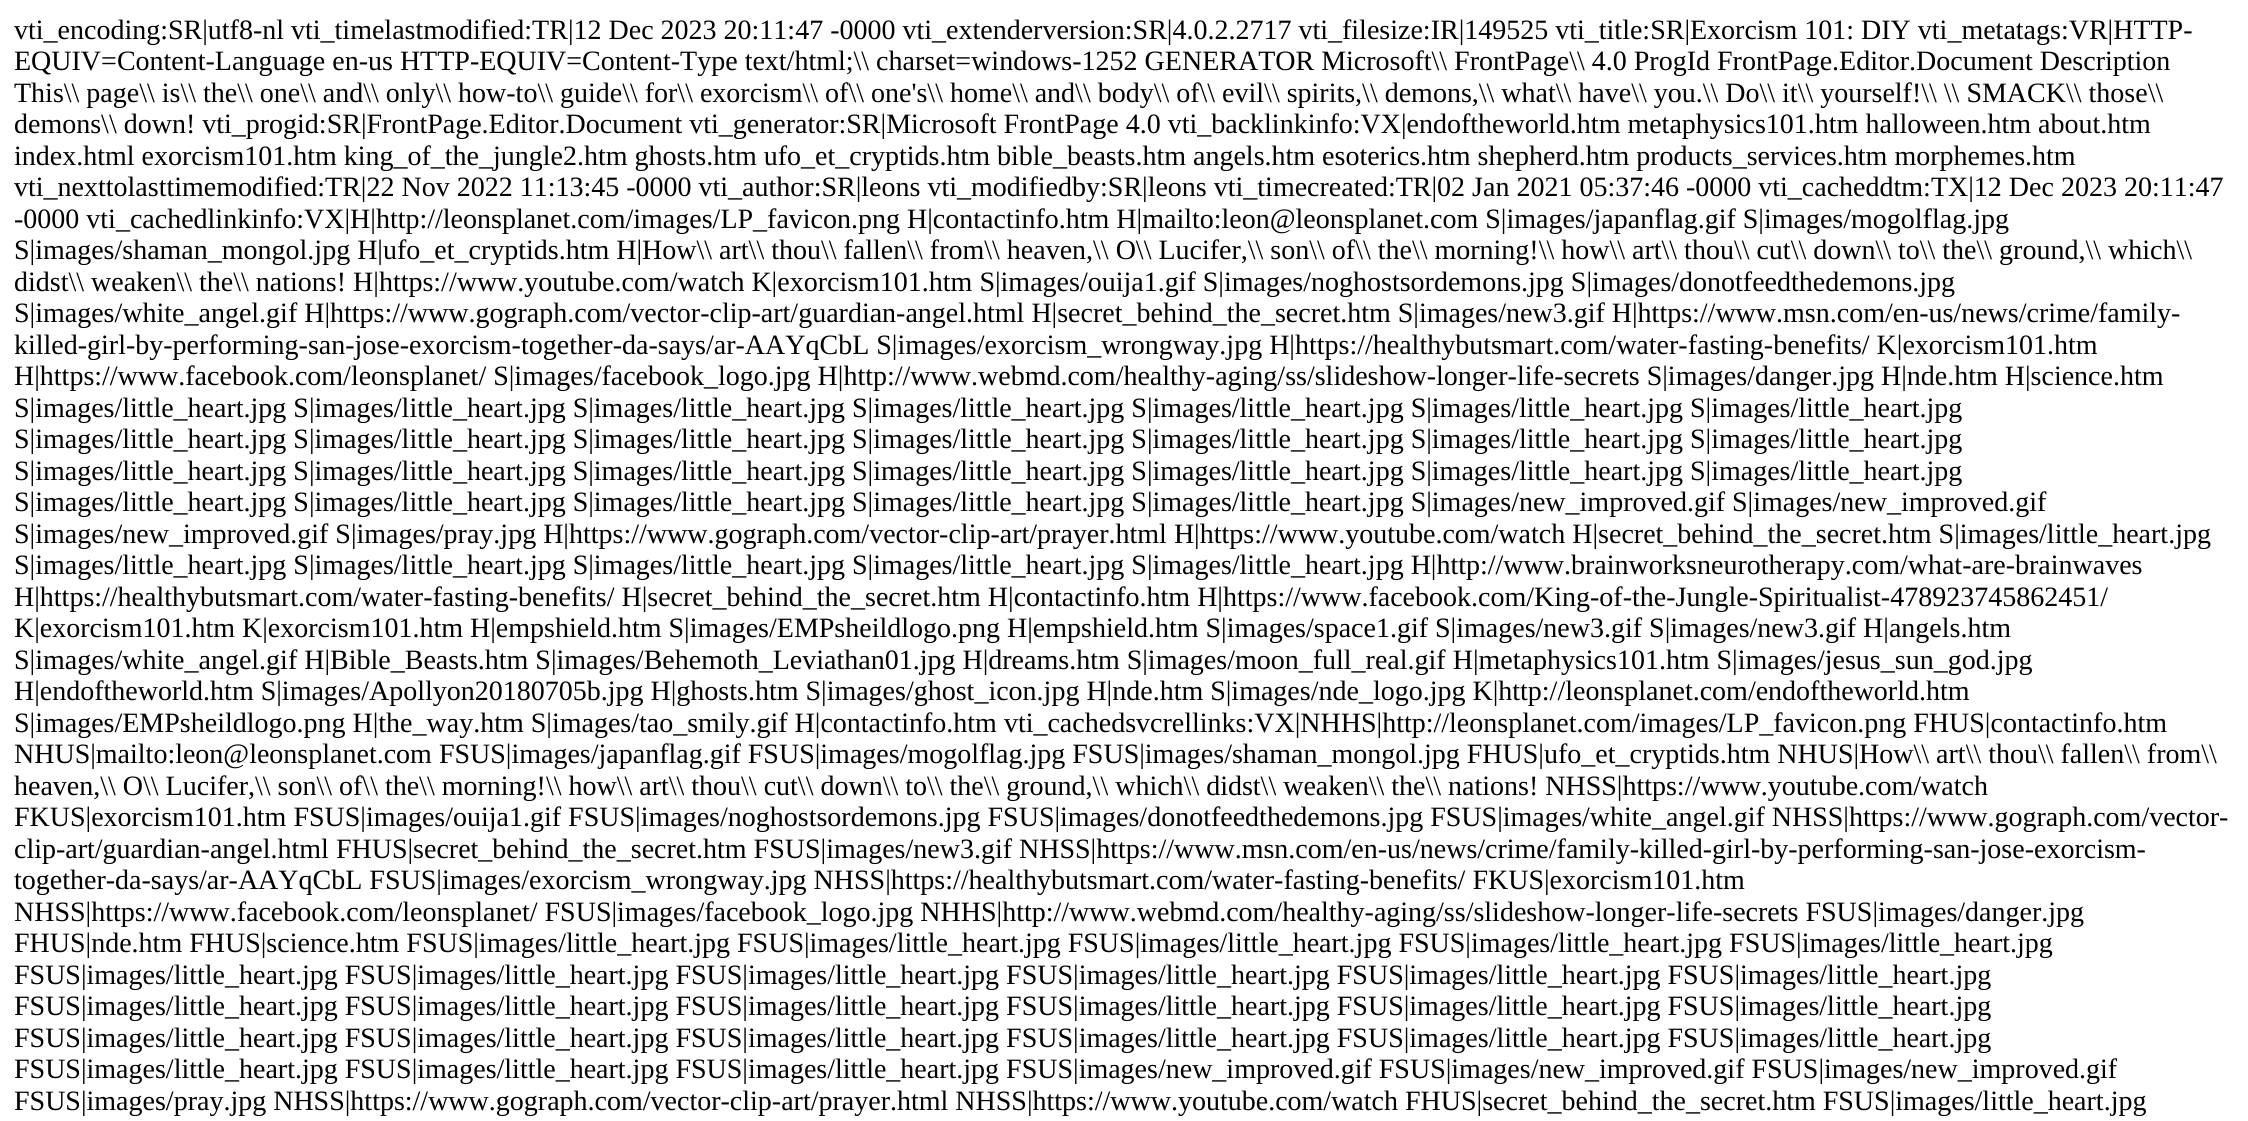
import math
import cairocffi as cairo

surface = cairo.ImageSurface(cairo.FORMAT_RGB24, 2248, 1121)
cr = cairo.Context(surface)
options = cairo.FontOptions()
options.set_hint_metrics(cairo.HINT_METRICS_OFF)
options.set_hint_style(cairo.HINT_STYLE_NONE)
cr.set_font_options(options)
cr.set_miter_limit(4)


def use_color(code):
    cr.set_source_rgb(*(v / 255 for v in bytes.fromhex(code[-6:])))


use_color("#ffffff")
cr.paint()
cr.select_font_face("Liberation Serif")
cr.set_font_size(28)
use_color("#000000")
cr.move_to(14, 39)
cr.show_text("vti_encoding:SR|utf8-nl vti_timelastmodified:TR|12 Dec 2023 20:11:47 -0000 vti_extenderversion:SR|4.0.2.2717 vti_filesize:IR|149525 vti_title:SR|Exorcism 101: DIY vti_metatags:VR|HTTP-")
cr.move_to(14, 70)
cr.show_text("EQUIV=Content-Language en-us HTTP-EQUIV=Content-Type text/html;\\\\ charset=windows-1252 GENERATOR Microsoft\\\\ FrontPage\\\\ 4.0 ProgId FrontPage.Editor.Document Description")
cr.move_to(14, 102)
cr.show_text("This\\\\ page\\\\ is\\\\ the\\\\ one\\\\ and\\\\ only\\\\ how-to\\\\ guide\\\\ for\\\\ exorcism\\\\ of\\\\ one's\\\\ home\\\\ and\\\\ body\\\\ of\\\\ evil\\\\ spirits,\\\\ demons,\\\\ what\\\\ have\\\\ you.\\\\ Do\\\\ it\\\\ yourself!\\\\ \\\\ SMACK\\\\ those\\\\")
cr.move_to(14, 133)
cr.show_text("demons\\\\ down! vti_progid:SR|FrontPage.Editor.Document vti_generator:SR|Microsoft FrontPage 4.0 vti_backlinkinfo:VX|endoftheworld.htm metaphysics101.htm halloween.htm about.htm")
cr.move_to(14, 165)
cr.show_text("index.html exorcism101.htm king_of_the_jungle2.htm ghosts.htm ufo_et_cryptids.htm bible_beasts.htm angels.htm esoterics.htm shepherd.htm products_services.htm morphemes.htm")
cr.move_to(14, 196)
cr.show_text("vti_nexttolasttimemodified:TR|22 Nov 2022 11:13:45 -0000 vti_author:SR|leons vti_modifiedby:SR|leons vti_timecreated:TR|02 Jan 2021 05:37:46 -0000 vti_cacheddtm:TX|12 Dec 2023 20:11:47")
cr.move_to(14, 228)
cr.show_text("-0000 vti_cachedlinkinfo:VX|H|http://leonsplanet.com/images/LP_favicon.png H|contactinfo.htm H|mailto:leon@leonsplanet.com S|images/japanflag.gif S|images/mogolflag.jpg")
cr.move_to(14, 259)
cr.show_text("S|images/shaman_mongol.jpg H|ufo_et_cryptids.htm H|How\\\\ art\\\\ thou\\\\ fallen\\\\ from\\\\ heaven,\\\\ O\\\\ Lucifer,\\\\ son\\\\ of\\\\ the\\\\ morning!\\\\ how\\\\ art\\\\ thou\\\\ cut\\\\ down\\\\ to\\\\ the\\\\ ground,\\\\ which\\\\")
cr.move_to(14, 291)
cr.show_text("didst\\\\ weaken\\\\ the\\\\ nations! H|https://www.youtube.com/watch K|exorcism101.htm S|images/ouija1.gif S|images/noghostsordemons.jpg S|images/donotfeedthedemons.jpg")
cr.move_to(14, 322)
cr.show_text("S|images/white_angel.gif H|https://www.gograph.com/vector-clip-art/guardian-angel.html H|secret_behind_the_secret.htm S|images/new3.gif H|https://www.msn.com/en-us/news/crime/family-")
cr.move_to(14, 354)
cr.show_text("killed-girl-by-performing-san-jose-exorcism-together-da-says/ar-AAYqCbL S|images/exorcism_wrongway.jpg H|https://healthybutsmart.com/water-fasting-benefits/ K|exorcism101.htm")
cr.move_to(14, 385)
cr.show_text("H|https://www.facebook.com/leonsplanet/ S|images/facebook_logo.jpg H|http://www.webmd.com/healthy-aging/ss/slideshow-longer-life-secrets S|images/danger.jpg H|nde.htm H|science.htm")
cr.move_to(14, 417)
cr.show_text("S|images/little_heart.jpg S|images/little_heart.jpg S|images/little_heart.jpg S|images/little_heart.jpg S|images/little_heart.jpg S|images/little_heart.jpg S|images/little_heart.jpg")
cr.move_to(14, 448)
cr.show_text("S|images/little_heart.jpg S|images/little_heart.jpg S|images/little_heart.jpg S|images/little_heart.jpg S|images/little_heart.jpg S|images/little_heart.jpg S|images/little_heart.jpg")
cr.move_to(14, 480)
cr.show_text("S|images/little_heart.jpg S|images/little_heart.jpg S|images/little_heart.jpg S|images/little_heart.jpg S|images/little_heart.jpg S|images/little_heart.jpg S|images/little_heart.jpg")
cr.move_to(14, 511)
cr.show_text("S|images/little_heart.jpg S|images/little_heart.jpg S|images/little_heart.jpg S|images/little_heart.jpg S|images/little_heart.jpg S|images/new_improved.gif S|images/new_improved.gif")
cr.move_to(14, 543)
cr.show_text("S|images/new_improved.gif S|images/pray.jpg H|https://www.gograph.com/vector-clip-art/prayer.html H|https://www.youtube.com/watch H|secret_behind_the_secret.htm S|images/little_heart.jpg")
cr.move_to(14, 574)
cr.show_text("S|images/little_heart.jpg S|images/little_heart.jpg S|images/little_heart.jpg S|images/little_heart.jpg S|images/little_heart.jpg H|http://www.brainworksneurotherapy.com/what-are-brainwaves")
cr.move_to(14, 606)
cr.show_text("H|https://healthybutsmart.com/water-fasting-benefits/ H|secret_behind_the_secret.htm H|contactinfo.htm H|https://www.facebook.com/King-of-the-Jungle-Spiritualist-478923745862451/")
cr.move_to(14, 637)
cr.show_text("K|exorcism101.htm K|exorcism101.htm H|empshield.htm S|images/EMPsheildlogo.png H|empshield.htm S|images/space1.gif S|images/new3.gif S|images/new3.gif H|angels.htm")
cr.move_to(14, 669)
cr.show_text("S|images/white_angel.gif H|Bible_Beasts.htm S|images/Behemoth_Leviathan01.jpg H|dreams.htm S|images/moon_full_real.gif H|metaphysics101.htm S|images/jesus_sun_god.jpg")
cr.move_to(14, 700)
cr.show_text("H|endoftheworld.htm S|images/Apollyon20180705b.jpg H|ghosts.htm S|images/ghost_icon.jpg H|nde.htm S|images/nde_logo.jpg K|http://leonsplanet.com/endoftheworld.htm")
cr.move_to(14, 732)
cr.show_text("S|images/EMPsheildlogo.png H|the_way.htm S|images/tao_smily.gif H|contactinfo.htm vti_cachedsvcrellinks:VX|NHHS|http://leonsplanet.com/images/LP_favicon.png FHUS|contactinfo.htm")
cr.move_to(14, 763)
cr.show_text("NHUS|mailto:leon@leonsplanet.com FSUS|images/japanflag.gif FSUS|images/mogolflag.jpg FSUS|images/shaman_mongol.jpg FHUS|ufo_et_cryptids.htm NHUS|How\\\\ art\\\\ thou\\\\ fallen\\\\ from\\\\")
cr.move_to(14, 795)
cr.show_text("heaven,\\\\ O\\\\ Lucifer,\\\\ son\\\\ of\\\\ the\\\\ morning!\\\\ how\\\\ art\\\\ thou\\\\ cut\\\\ down\\\\ to\\\\ the\\\\ ground,\\\\ which\\\\ didst\\\\ weaken\\\\ the\\\\ nations! NHSS|https://www.youtube.com/watch")
cr.move_to(14, 826)
cr.show_text("FKUS|exorcism101.htm FSUS|images/ouija1.gif FSUS|images/noghostsordemons.jpg FSUS|images/donotfeedthedemons.jpg FSUS|images/white_angel.gif NHSS|https://www.gograph.com/vector-")
cr.move_to(14, 858)
cr.show_text("clip-art/guardian-angel.html FHUS|secret_behind_the_secret.htm FSUS|images/new3.gif NHSS|https://www.msn.com/en-us/news/crime/family-killed-girl-by-performing-san-jose-exorcism-")
cr.move_to(14, 889)
cr.show_text("together-da-says/ar-AAYqCbL FSUS|images/exorcism_wrongway.jpg NHSS|https://healthybutsmart.com/water-fasting-benefits/ FKUS|exorcism101.htm")
cr.move_to(14, 921)
cr.show_text("NHSS|https://www.facebook.com/leonsplanet/ FSUS|images/facebook_logo.jpg NHHS|http://www.webmd.com/healthy-aging/ss/slideshow-longer-life-secrets FSUS|images/danger.jpg")
cr.move_to(14, 952)
cr.show_text("FHUS|nde.htm FHUS|science.htm FSUS|images/little_heart.jpg FSUS|images/little_heart.jpg FSUS|images/little_heart.jpg FSUS|images/little_heart.jpg FSUS|images/little_heart.jpg")
cr.move_to(14, 984)
cr.show_text("FSUS|images/little_heart.jpg FSUS|images/little_heart.jpg FSUS|images/little_heart.jpg FSUS|images/little_heart.jpg FSUS|images/little_heart.jpg FSUS|images/little_heart.jpg")
cr.move_to(14, 1015)
cr.show_text("FSUS|images/little_heart.jpg FSUS|images/little_heart.jpg FSUS|images/little_heart.jpg FSUS|images/little_heart.jpg FSUS|images/little_heart.jpg FSUS|images/little_heart.jpg")
cr.move_to(14, 1047)
cr.show_text("FSUS|images/little_heart.jpg FSUS|images/little_heart.jpg FSUS|images/little_heart.jpg FSUS|images/little_heart.jpg FSUS|images/little_heart.jpg FSUS|images/little_heart.jpg")
cr.move_to(14, 1078)
cr.show_text("FSUS|images/little_heart.jpg FSUS|images/little_heart.jpg FSUS|images/little_heart.jpg FSUS|images/new_improved.gif FSUS|images/new_improved.gif FSUS|images/new_improved.gif")
cr.move_to(14, 1110)
cr.show_text("FSUS|images/pray.jpg NHSS|https://www.gograph.com/vector-clip-art/prayer.html NHSS|https://www.youtube.com/watch FHUS|secret_behind_the_secret.htm FSUS|images/little_heart.jpg")
surface.write_to_png("result.png")
